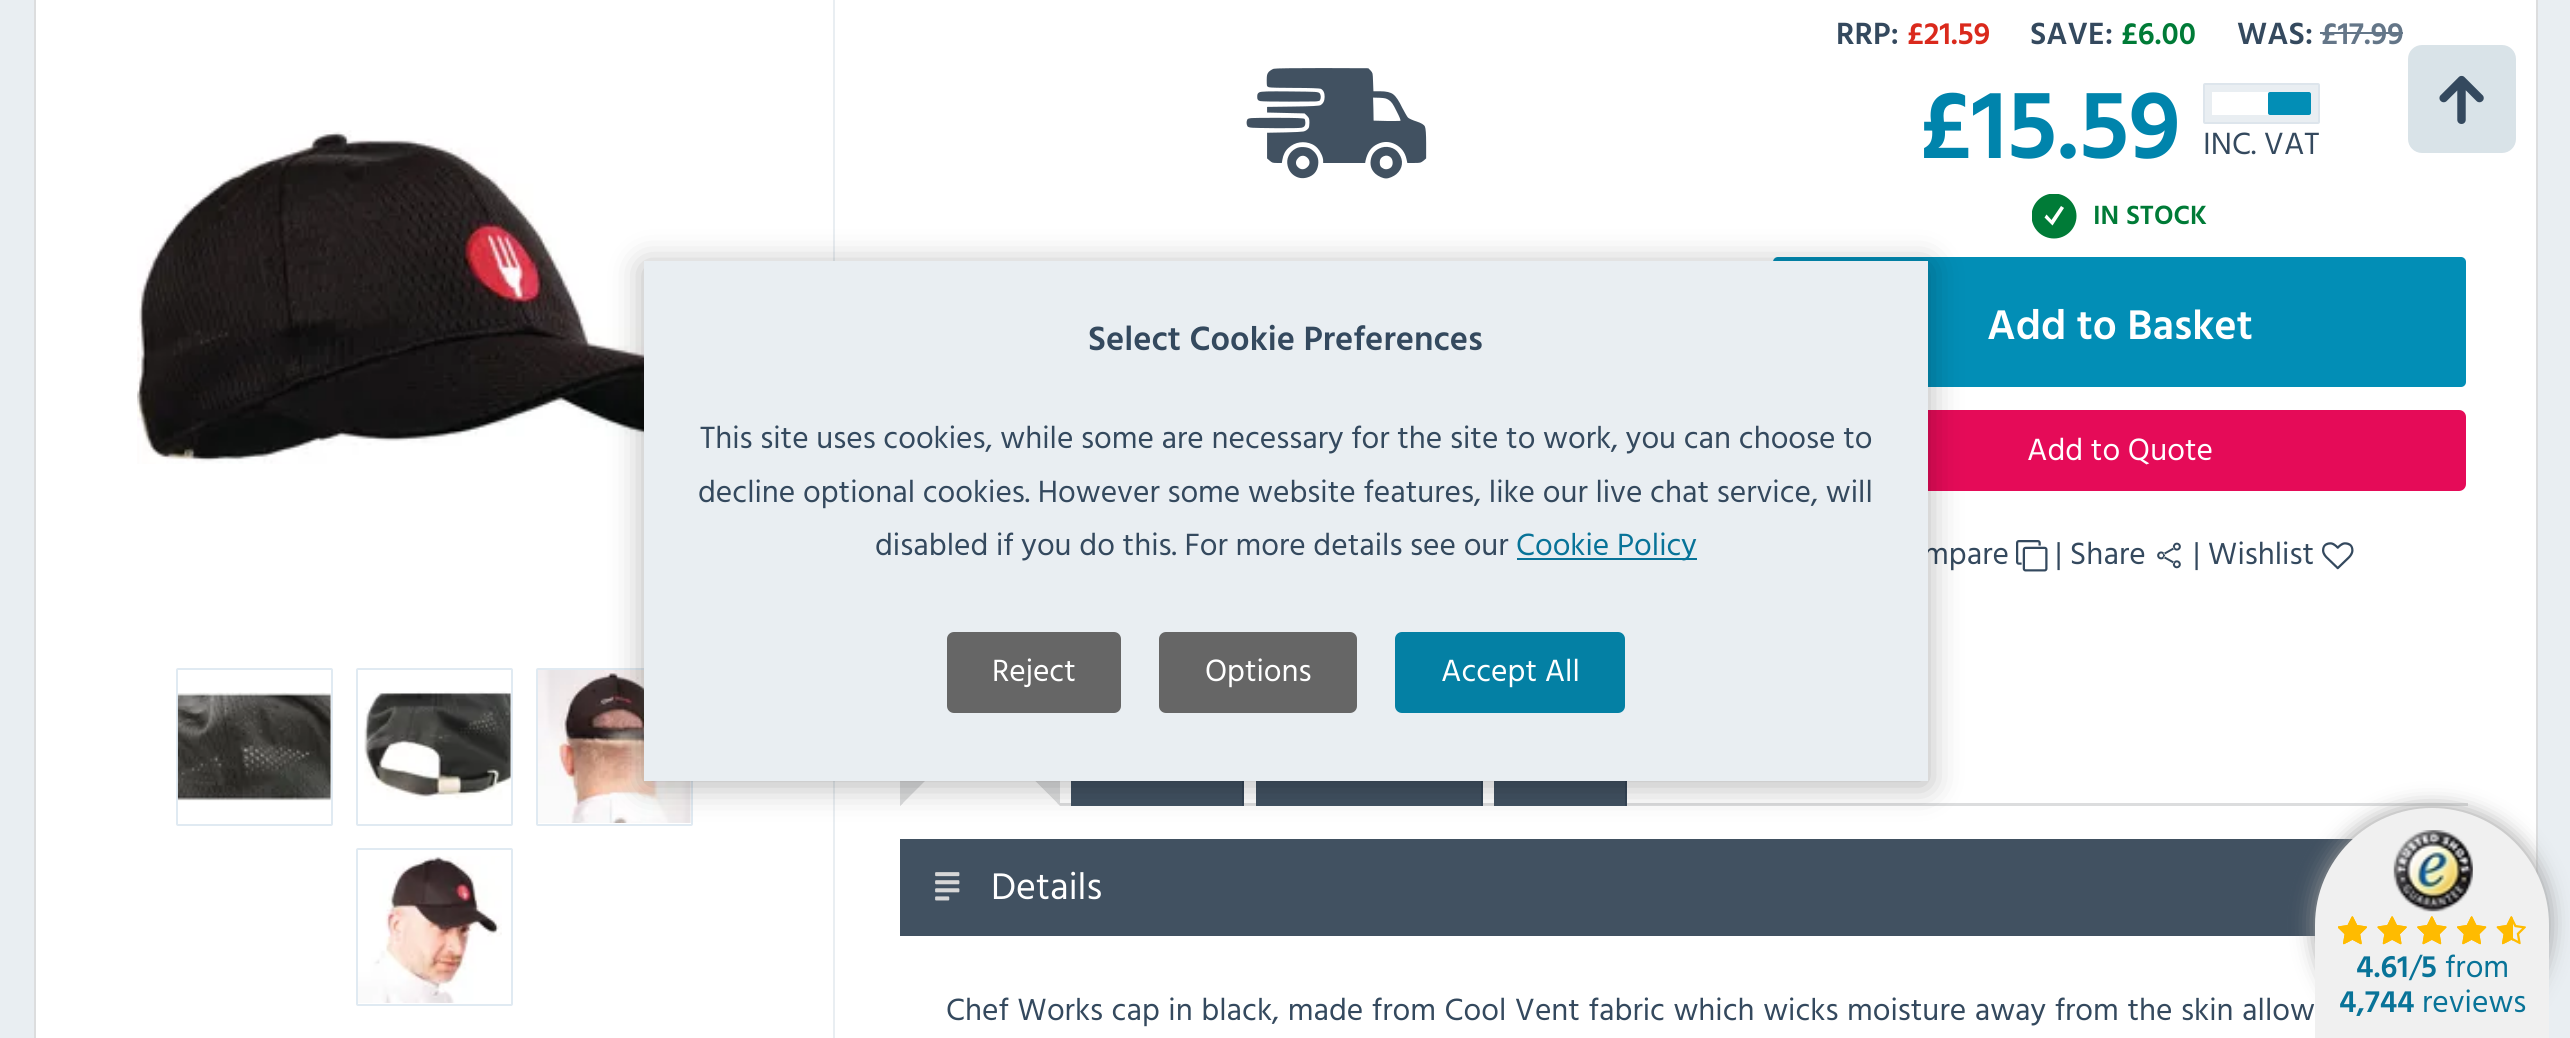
import math
import cairocffi as cairo

surface = cairo.ImageSurface(cairo.FORMAT_RGB24, 2570, 1038)
cr = cairo.Context(surface)
options = cairo.FontOptions()
options.set_hint_metrics(cairo.HINT_METRICS_OFF)
options.set_hint_style(cairo.HINT_STYLE_NONE)
cr.set_font_options(options)
cr.set_miter_limit(4)


def use_color(code):
    cr.set_source_rgb(*(v / 255 for v in bytes.fromhex(code[-6:])))


def spaced_text(x, y, s, letter, word):
    cr.move_to(x, y)
    for ch in s:
        cr.show_text(ch)
        cr.rel_move_to(letter + word * (ch == ' '), 0)


def round_rect(x, y, w, h, r):
    cr.new_sub_path()
    for i, (u, v) in enumerate([(x + w - r, y + h - r), (x + r, y + h - r), (x + r, y + r), (x + w - r, y + r)]):
        cr.arc(u, v, r, i * math.pi / 2, (i + 1) * math.pi / 2)
    cr.close_path()


def shadow(x, y, w, h, r, blur, alpha):
    cr.push_group_with_content(cairo.CONTENT_ALPHA)
    cr.set_operator(cairo.OPERATOR_SOURCE)
    for i in range(15, -16, -2):
        e = blur * i / 6
        if min(w, h) + 2 * e > 0:
            cr.set_source_rgba(0, 0, 0, alpha * math.erfc((i - 1) / 8.5) / 2)
            round_rect(x - e, y - e, w + 2 * e, h + 2 * e, max(0, min(r + e + blur * .6, min(w, h) / 2 + e)))
            cr.fill()
    cr.mask(cr.pop_group())


def picture(path, x, y, w, h):
    cr.save()
    cr.set_source_surface(cairo.ImageSurface.create_from_png(path), x, y)
    cr.rectangle(x, y, w, h)
    cr.fill()
    cr.restore()


use_color("#e9eef2")
cr.paint()
use_color("#ffffff")
cr.rectangle(35, -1, 2502, 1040)
cr.fill_preserve()
use_color("#dcddde")
cr.stroke()
use_color("#e9eef2")
cr.rectangle(833, 0, 2, 1038)
cr.fill()
picture("img1.png", 137, 130, 597, 334)
round_rect(177, 669, 155, 156, 1)
use_color("#e0eaf2")
cr.stroke()
picture("img2.png", 177, 692, 154, 109)
round_rect(357, 669, 155, 156, 1)
cr.stroke()
picture("img3.png", 364, 691, 147, 109)
round_rect(537, 669, 155, 156, 1)
cr.stroke()
picture("img4.png", 538, 670, 153, 153)
round_rect(357, 849, 155, 156, 1)
cr.stroke()
picture("img5.png", 358, 856, 144, 147)
picture("img6.png", 1246, 68, 181, 111)
cr.select_font_face("Hind Vadodara SemiBold")
cr.set_font_size(31.5)
use_color("#34495e")
cr.move_to(1836, 44)
cr.show_text("RRP:")
use_color("#da291c")
cr.move_to(1907, 44)
cr.show_text("£21.59")
use_color("#34495e")
cr.move_to(2030, 44)
cr.show_text("SAVE:")
use_color("#007b37")
cr.move_to(2121, 44)
cr.show_text("£6.00")
use_color("#34495e")
cr.move_to(2237, 44)
cr.show_text("WAS:")
use_color("#647688")
cr.move_to(2321, 44)
cr.show_text("£17.99")
cr.rectangle(2320, 32, 83, 2)
cr.fill()
cr.set_font_size(99)
use_color("#0084ac")
cr.move_to(1919, 158)
cr.show_text("£15.59")
use_color("#e9eef2")
round_rect(2204, 84, 115, 39, 1)
cr.fill_preserve()
use_color("#dde5ec")
cr.stroke()
use_color("#ffffff")
cr.rectangle(2212, 92, 99, 23)
cr.fill()
use_color("#028eb6")
round_rect(2269, 93, 41, 21, 1)
cr.fill_preserve()
cr.stroke()
cr.select_font_face("Hind Vadodara")
cr.set_font_size(31.5)
use_color("#34495e")
cr.move_to(2203, 154)
cr.show_text("INC. VAT")
cr.save()
cr.rectangle(2032, 194, 45, 45)
cr.clip()
use_color("#007b37")
cr.arc(2054, 216, 22.5, 0, 2 * math.pi)
cr.fill()
cr.restore()
use_color("#ffffff")
cr.new_path()
cr.move_to(2044.5, 217.5)
cr.line_to(2052.5, 225.5)
cr.line_to(2064, 208)
cr.line_to(2061, 206)
cr.line_to(2051.5, 220)
cr.line_to(2046.5, 214.5)
cr.close_path()
cr.fill()
cr.select_font_face("Hind Vadodara SemiBold")
cr.set_font_size(27)
use_color("#007b37")
cr.move_to(2093, 224)
cr.show_text("IN STOCK")
use_color("#028eb6")
round_rect(1773, 257, 693, 130, 5)
cr.fill()
cr.set_font_size(42.5)
use_color("#ffffff")
cr.move_to(1987, 339)
cr.show_text("Add to Basket")
use_color("#e50b58")
round_rect(1773, 410, 693, 81, 7)
cr.fill()
cr.select_font_face("Hind Vadodara")
cr.set_font_size(31.5)
use_color("#ffffff")
cr.move_to(2027, 460)
cr.show_text("Add to Quote")
use_color("#34495e")
cr.move_to(1923, 564)
cr.show_text("mpare")
picture("img7.png", 2016, 540, 32, 32)
cr.move_to(2055, 564)
cr.show_text("| Share")
picture("img8.png", 2157, 542, 24, 27)
cr.move_to(2193, 564)
cr.show_text("| Wishlist")
picture("img9.png", 2322, 542, 32, 28)
use_color("#dcddde")
cr.rectangle(900, 803, 1568, 3)
cr.fill()
cr.new_path()
cr.move_to(1060, 667)
cr.line_to(1058, 665)
cr.line_to(989, 735)
cr.line_to(1060, 806)
cr.close_path()
cr.fill()
use_color("#ffffff")
cr.new_path()
cr.move_to(1060, 806)
cr.line_to(989, 735)
cr.line_to(971, 735)
cr.line_to(900, 806)
cr.close_path()
cr.fill()
use_color("#dcddde")
cr.new_path()
cr.move_to(900, 806)
cr.line_to(971, 735)
cr.line_to(902, 665)
cr.curve_to(901, 666, 900, 668, 900, 669)
cr.close_path()
cr.fill()
use_color("#415161")
cr.rectangle(1071, 781, 171, 25)
cr.fill()
use_color("#354556")
cr.rectangle(1242, 781, 2, 25)
cr.fill()
use_color("#415161")
cr.rectangle(1256, 781, 225, 25)
cr.fill()
use_color("#354556")
cr.rectangle(1481, 781, 2, 25)
cr.fill()
use_color("#415161")
cr.rectangle(1494, 781, 131, 25)
cr.fill()
use_color("#354556")
cr.rectangle(1625, 781, 2, 25)
cr.fill()
use_color("#415161")
cr.rectangle(900, 839, 1453, 97)
cr.fill()
picture("img10.png", 935, 872, 25, 29)
cr.set_font_size(38)
use_color("#ffffff")
cr.move_to(991, 899)
cr.show_text("Details")
cr.set_font_size(31.5)
use_color("#34495e")
spaced_text(946, 1020, "Chef Works cap in black, made from Cool Vent fabric which wicks moisture away from the skin allow", 0, 0.9)
use_color("#d9e3e8")
round_rect(2408, 45, 108, 108, 14)
cr.fill()
picture("img11.png", 2439, 75, 45, 49)
use_color("#000000")
shadow(644, 266, 1284, 519, 0, 17, 0.3)
use_color("#e9eef2")
cr.rectangle(644, 261, 1284, 520)
cr.fill()
cr.select_font_face("Hind Vadodara SemiBold")
cr.set_font_size(34.6)
use_color("#34495e")
cr.move_to(1088, 350)
cr.show_text("Select Cookie Preferences")
cr.select_font_face("Hind Vadodara")
cr.set_font_size(31.5)
cr.move_to(700, 448)
cr.show_text("This site uses cookies, while some are necessary for the site to work, you can choose to")
cr.move_to(698, 502)
cr.show_text("decline optional cookies. However some website features, like our live chat service, will")
cr.move_to(875, 555)
cr.show_text("disabled if you do this. For more details see our")
use_color("#087398")
cr.rectangle(1517, 558, 180, 2)
cr.fill()
cr.move_to(1516, 555)
cr.show_text("Cookie Policy")
use_color("#666666")
round_rect(947, 632, 174, 81, 7)
cr.fill()
use_color("#ffffff")
cr.move_to(992, 681)
cr.show_text("Reject")
use_color("#666666")
round_rect(1159, 632, 198, 81, 7)
cr.fill()
use_color("#ffffff")
cr.move_to(1205, 681)
cr.show_text("Options")
use_color("#0480a4")
round_rect(1395, 632, 230, 81, 7)
cr.fill()
use_color("#ffffff")
cr.move_to(1441, 681)
cr.show_text("Accept All")
use_color("#999999")
shadow(2315, 808, 234, 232, 116, 11, 1)
use_color("#f0f0f0")
cr.new_path()
cr.move_to(2432, 808)
cr.curve_to(2496.5, 808, 2549, 860.5, 2549, 925)
cr.line_to(2549, 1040)
cr.line_to(2315, 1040)
cr.line_to(2315, 925)
cr.curve_to(2315, 860.5, 2367.5, 808, 2432, 808)
cr.close_path()
cr.fill()
picture("img12.png", 2393, 830, 80, 82)
picture("img13.png", 2338, 916, 188, 29)
picture("img14.png", 2338, 916, 175, 29)
cr.select_font_face("Hind Vadodara SemiBold")
use_color("#087398")
cr.move_to(2356, 977)
cr.show_text("4.61")
cr.select_font_face("Hind Vadodara")
cr.move_to(2409, 977)
cr.show_text("/")
cr.select_font_face("Hind Vadodara SemiBold")
cr.move_to(2421, 977)
cr.show_text("5")
cr.select_font_face("Hind Vadodara")
cr.move_to(2445, 977)
cr.show_text("from")
cr.select_font_face("Hind Vadodara SemiBold")
cr.move_to(2339, 1012)
cr.show_text("4,744")
cr.select_font_face("Hind Vadodara")
cr.move_to(2422, 1012)
cr.show_text("reviews")
surface.write_to_png("result.png")
